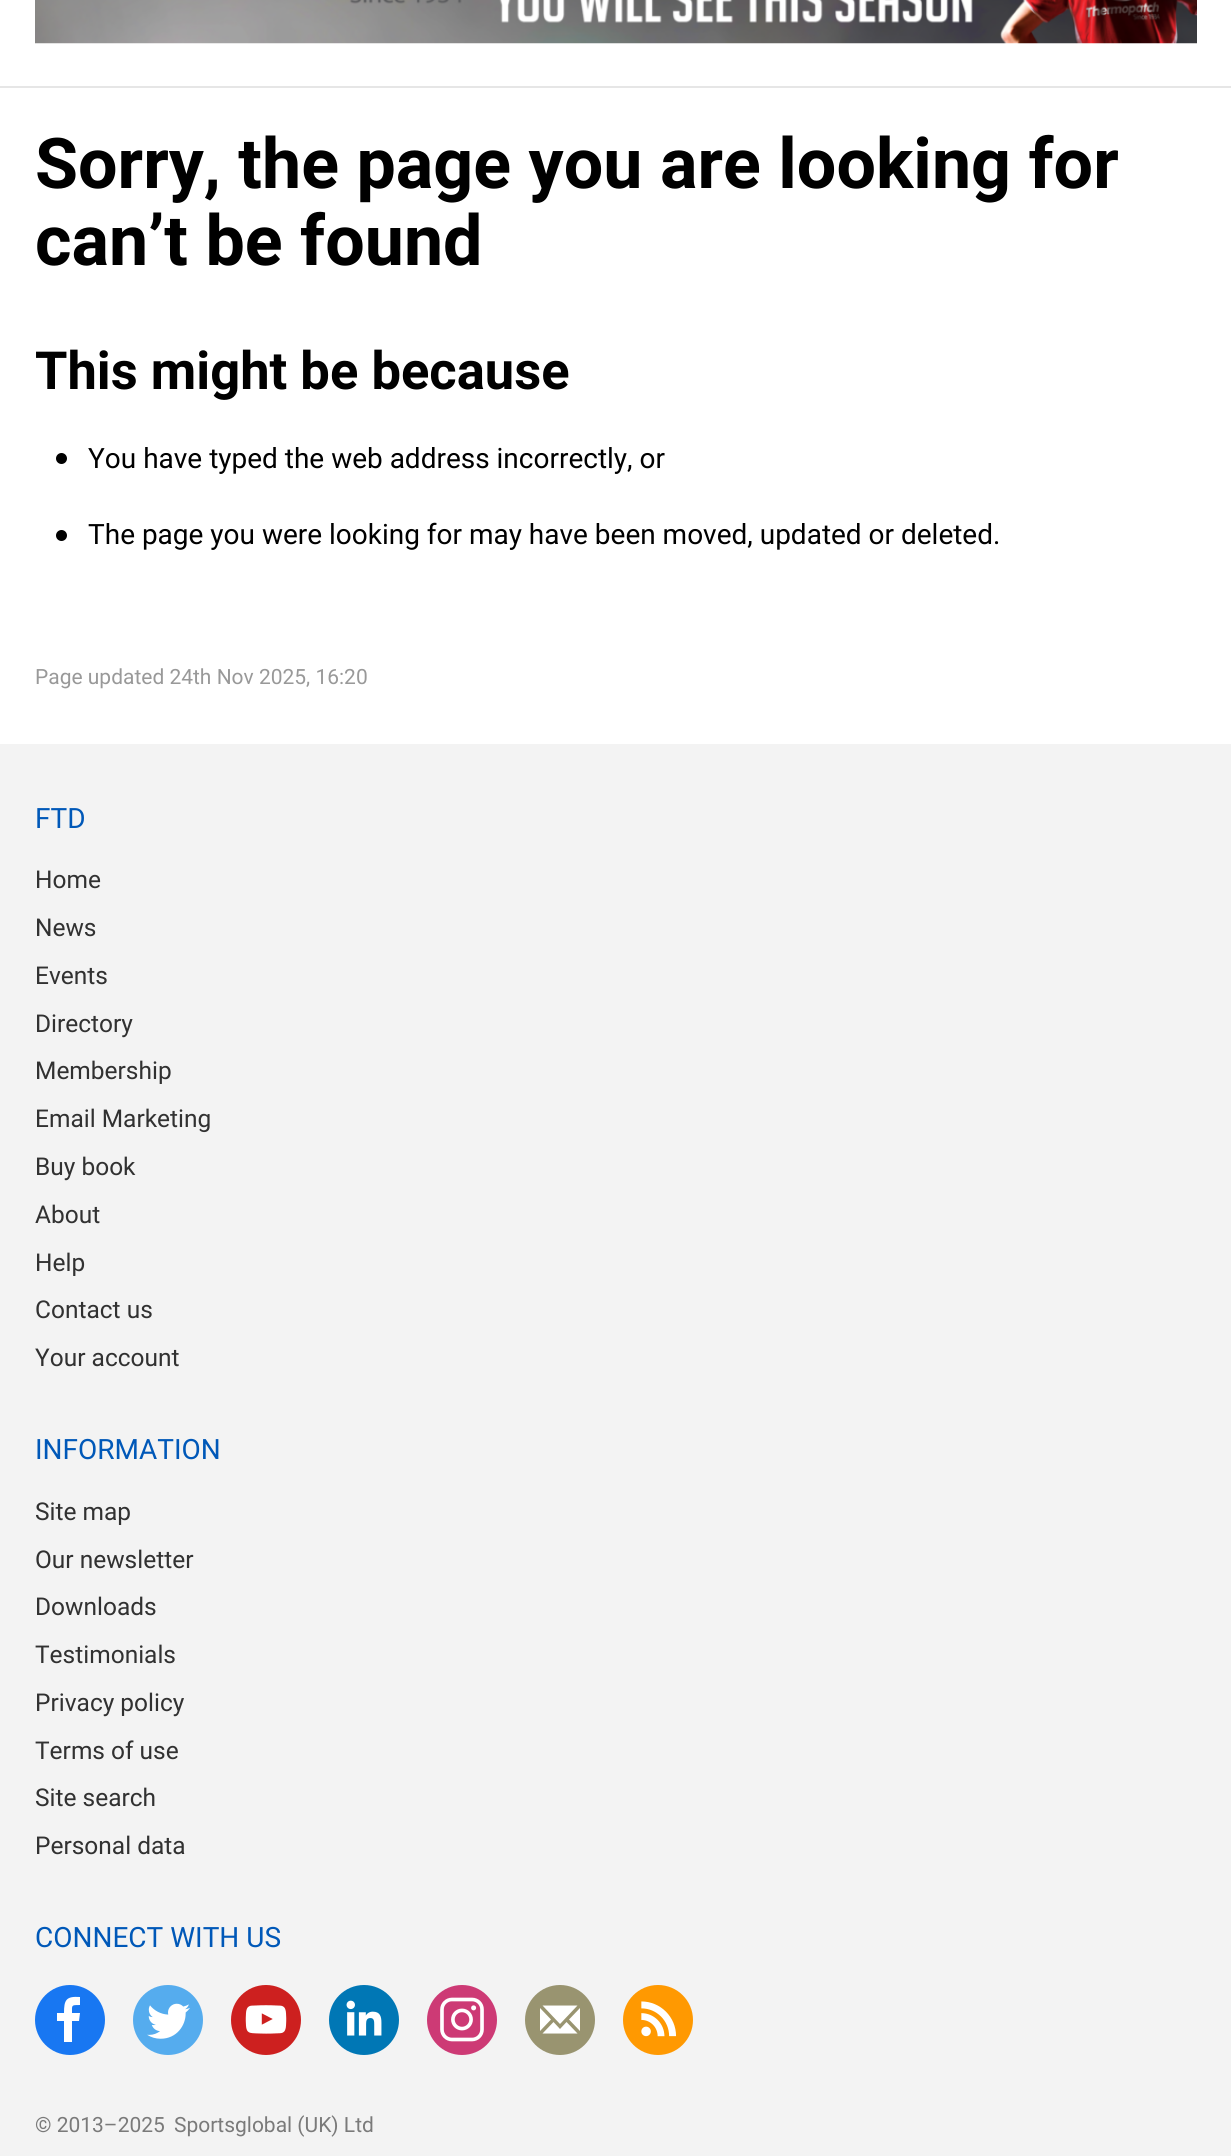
import math
import cairocffi as cairo

surface = cairo.ImageSurface(cairo.FORMAT_RGB24, 1231, 2156)
cr = cairo.Context(surface)
options = cairo.FontOptions()
options.set_hint_metrics(cairo.HINT_METRICS_OFF)
options.set_hint_style(cairo.HINT_STYLE_NONE)
cr.set_font_options(options)
cr.set_miter_limit(4)


def use_color(code):
    cr.set_source_rgb(*(v / 255 for v in bytes.fromhex(code[-6:])))


def picture(path, x, y, w, h):
    cr.save()
    cr.set_source_surface(cairo.ImageSurface.create_from_png(path), x, y)
    cr.rectangle(x, y, w, h)
    cr.fill()
    cr.restore()


use_color("#ffffff")
cr.paint()
use_color("#e6e6e6")
cr.rectangle(0, 86, 1231, 2)
cr.fill()
picture("img1.png", 35, 0, 1162, 44)
cr.select_font_face("Roboto", cairo.FONT_SLANT_NORMAL, cairo.FONT_WEIGHT_BOLD)
cr.set_font_size(70)
use_color("#000000")
cr.move_to(35, 188)
cr.show_text("Sorry, the page you are looking for")
cr.move_to(35, 265)
cr.show_text("can’t be found")
cr.set_font_size(52.5)
cr.move_to(35, 389)
cr.show_text("This might be because")
cr.new_path()
cr.arc(61.5, 458.5, 5.5, 0, 2 * math.pi)
cr.fill()
cr.select_font_face("Roboto")
cr.set_font_size(28)
cr.move_to(88, 468)
cr.show_text("You have typed the web address incorrectly, or")
cr.new_path()
cr.arc(61.5, 535.5, 5.5, 0, 2 * math.pi)
cr.fill()
cr.move_to(88, 544)
cr.show_text("The page you were looking for may have been moved, updated or deleted.")
cr.set_font_size(21)
use_color("#999999")
cr.move_to(35, 684)
cr.show_text("Page updated 24th Nov 2025, 16:20")
use_color("#f3f3f3")
cr.rectangle(0, 744, 1231, 1412)
cr.fill()
cr.set_font_size(28)
use_color("#0058b8")
cr.move_to(35, 828)
cr.show_text("FTD")
cr.set_font_size(24.5)
use_color("#313131")
cr.move_to(35, 888)
cr.show_text("Home")
cr.move_to(35, 936)
cr.show_text("News")
cr.move_to(35, 984)
cr.show_text("Events")
cr.move_to(35, 1032)
cr.show_text("Directory")
cr.move_to(35, 1079)
cr.show_text("Membership")
cr.move_to(35, 1127)
cr.show_text("Email Marketing")
cr.move_to(35, 1175)
cr.show_text("Buy book")
cr.move_to(35, 1223)
cr.show_text("About")
cr.move_to(35, 1271)
cr.show_text("Help")
cr.move_to(35, 1318)
cr.show_text("Contact us")
cr.move_to(35, 1366)
cr.show_text("Your account")
cr.set_font_size(28)
use_color("#0058b8")
cr.move_to(35, 1459)
cr.show_text("INFORMATION")
cr.set_font_size(24.5)
use_color("#313131")
cr.move_to(35, 1520)
cr.show_text("Site map")
cr.move_to(35, 1568)
cr.show_text("Our newsletter")
cr.move_to(35, 1615)
cr.show_text("Downloads")
cr.move_to(35, 1663)
cr.show_text("Testimonials")
cr.move_to(35, 1711)
cr.show_text("Privacy policy")
cr.move_to(35, 1759)
cr.show_text("Terms of use")
cr.move_to(35, 1806)
cr.show_text("Site search")
cr.move_to(35, 1854)
cr.show_text("Personal data")
cr.set_font_size(28)
use_color("#0058b8")
cr.move_to(35, 1947)
cr.show_text("CONNECT WITH US")
use_color("#1877f2")
cr.new_path()
cr.arc(70, 2020, 35, 0, 2 * math.pi)
cr.fill()
use_color("#ffffff")
cr.new_path()
cr.move_to(72, 2042)
cr.line_to(72, 2021)
cr.line_to(79, 2021)
cr.line_to(80, 2013)
cr.line_to(72, 2013)
cr.curve_to(72, 2005, 71, 2005, 80, 2005)
cr.line_to(80, 1997)
cr.curve_to(66, 1996, 64, 2000, 64, 2013)
cr.line_to(57, 2013)
cr.line_to(57, 2021)
cr.line_to(64, 2021)
cr.line_to(64, 2042)
cr.close_path()
cr.fill()
use_color("#55acee")
cr.arc(168, 2020, 35, 0, 2 * math.pi)
cr.fill()
picture("img2.png", 147, 2003, 43, 36)
use_color("#cd201f")
cr.arc(266, 2020, 35, 0, 2 * math.pi)
cr.fill()
picture("img3.png", 245, 2005, 42, 29)
use_color("#0077b5")
cr.arc(364, 2020, 35, 0, 2 * math.pi)
cr.fill()
picture("img4.png", 346, 2000, 36, 36)
use_color("#cd3a75")
cr.arc(462, 2020, 35, 0, 2 * math.pi)
cr.fill()
picture("img5.png", 440, 1997, 44, 45)
use_color("#999470")
cr.arc(560, 2020, 35, 0, 2 * math.pi)
cr.fill()
use_color("#ffffff")
cr.new_path()
cr.move_to(560, 2024)
cr.line_to(542.5, 2005.5)
cr.line_to(577.5, 2005.5)
cr.close_path()
cr.move_to(540, 2008)
cr.line_to(540, 2031)
cr.line_to(551, 2019.5)
cr.close_path()
cr.move_to(580, 2031)
cr.line_to(580, 2008)
cr.line_to(569, 2019.5)
cr.close_path()
cr.move_to(560, 2029)
cr.line_to(553.5, 2022)
cr.line_to(542.5, 2033.5)
cr.line_to(577.5, 2033.5)
cr.line_to(566.5, 2022)
cr.close_path()
cr.fill()
use_color("#ff9901")
cr.arc(658, 2020, 35, 0, 2 * math.pi)
cr.fill()
picture("img6.png", 641, 2001, 36, 36)
cr.set_font_size(21)
use_color("#7a7a7a")
cr.move_to(35, 2132)
cr.show_text("© 2013–2025")
cr.move_to(174, 2132)
cr.show_text("Sportsglobal (UK) Ltd")
surface.write_to_png("result.png")
